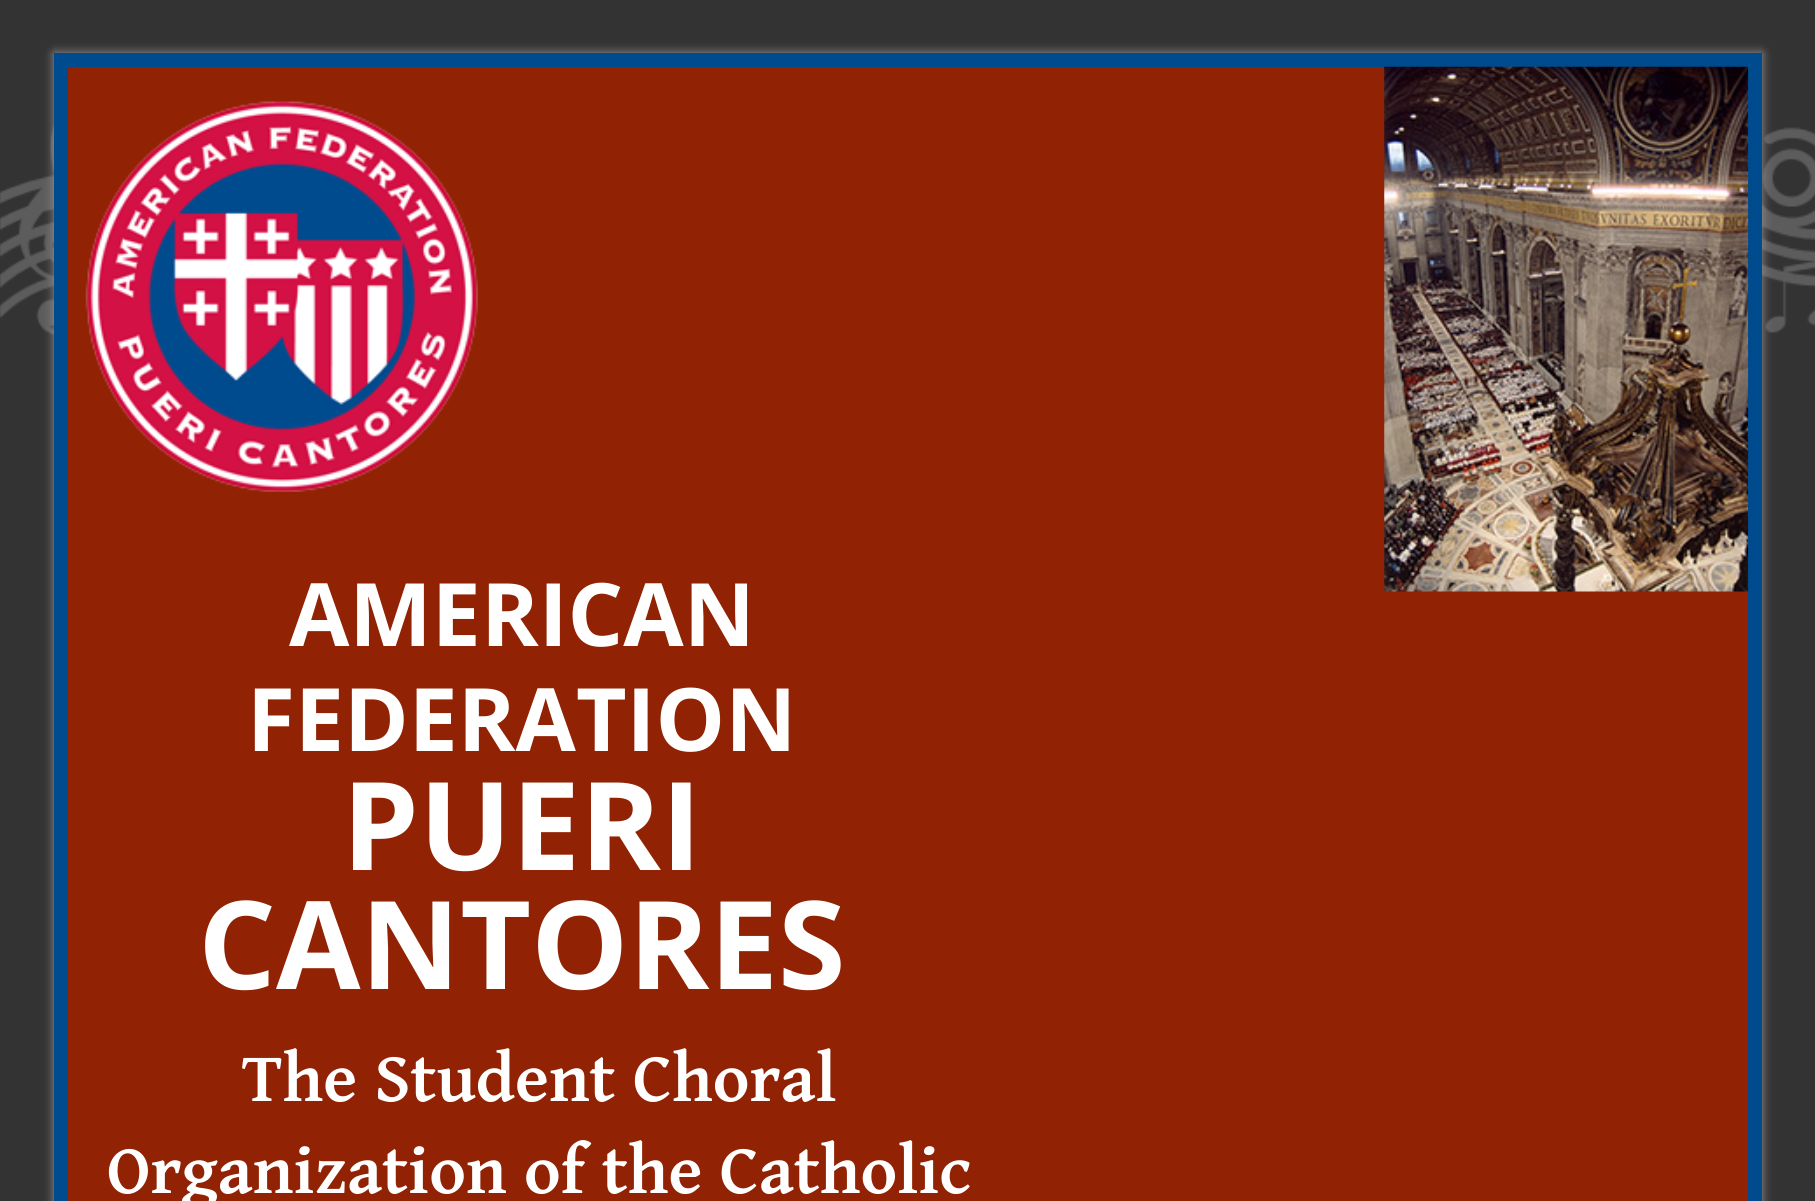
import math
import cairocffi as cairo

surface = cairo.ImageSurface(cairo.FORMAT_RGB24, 1815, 1201)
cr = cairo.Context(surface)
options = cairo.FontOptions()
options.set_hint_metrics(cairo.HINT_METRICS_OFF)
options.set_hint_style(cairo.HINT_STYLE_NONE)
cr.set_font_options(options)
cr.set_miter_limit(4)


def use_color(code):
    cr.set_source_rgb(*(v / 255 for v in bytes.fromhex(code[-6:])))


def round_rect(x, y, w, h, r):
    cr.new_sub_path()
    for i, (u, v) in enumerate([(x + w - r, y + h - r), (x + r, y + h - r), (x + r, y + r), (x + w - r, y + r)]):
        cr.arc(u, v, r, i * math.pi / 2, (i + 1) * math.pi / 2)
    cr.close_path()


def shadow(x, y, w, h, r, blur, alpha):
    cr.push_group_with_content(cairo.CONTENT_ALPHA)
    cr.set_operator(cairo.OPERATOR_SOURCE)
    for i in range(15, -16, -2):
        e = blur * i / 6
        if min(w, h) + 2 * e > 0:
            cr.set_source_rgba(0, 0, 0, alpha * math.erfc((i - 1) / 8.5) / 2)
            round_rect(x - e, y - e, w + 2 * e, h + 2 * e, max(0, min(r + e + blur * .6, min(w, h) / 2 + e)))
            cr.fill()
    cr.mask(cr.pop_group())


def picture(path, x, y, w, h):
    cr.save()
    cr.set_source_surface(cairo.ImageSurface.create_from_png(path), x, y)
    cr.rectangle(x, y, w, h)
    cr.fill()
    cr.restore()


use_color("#333333")
cr.paint()
picture("img1.png", 0, 124, 1815, 212)
use_color("#999999")
shadow(54, 53, 1708, 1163, 0, 5, 1)
cr.rectangle(61, 60, 1694, 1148)
use_color("#004b8e")
cr.set_line_width(14)
cr.stroke()
use_color("#912203")
cr.rectangle(68, 67, 1680, 1134)
cr.fill()
picture("img2.png", 85, 101, 393, 391)
picture("img3.png", 1384, 66, 365, 526)
cr.select_font_face("Open Sans", cairo.FONT_SLANT_NORMAL, cairo.FONT_WEIGHT_BOLD)
cr.set_font_size(87.5)
use_color("#ffffff")
cr.move_to(289, 646)
cr.show_text("AMERICAN")
cr.move_to(247, 751)
cr.show_text("FEDERATION")
cr.set_font_size(122.5)
cr.move_to(342, 870)
cr.show_text("PUERI")
cr.move_to(198, 989)
cr.show_text("CANTORES")
cr.select_font_face("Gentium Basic", cairo.FONT_SLANT_NORMAL, cairo.FONT_WEIGHT_BOLD)
cr.set_font_size(70)
cr.move_to(242, 1101)
cr.show_text("The Student Choral")
cr.move_to(107, 1193)
cr.show_text("Organization of the Catholic")
surface.write_to_png("result.png")
